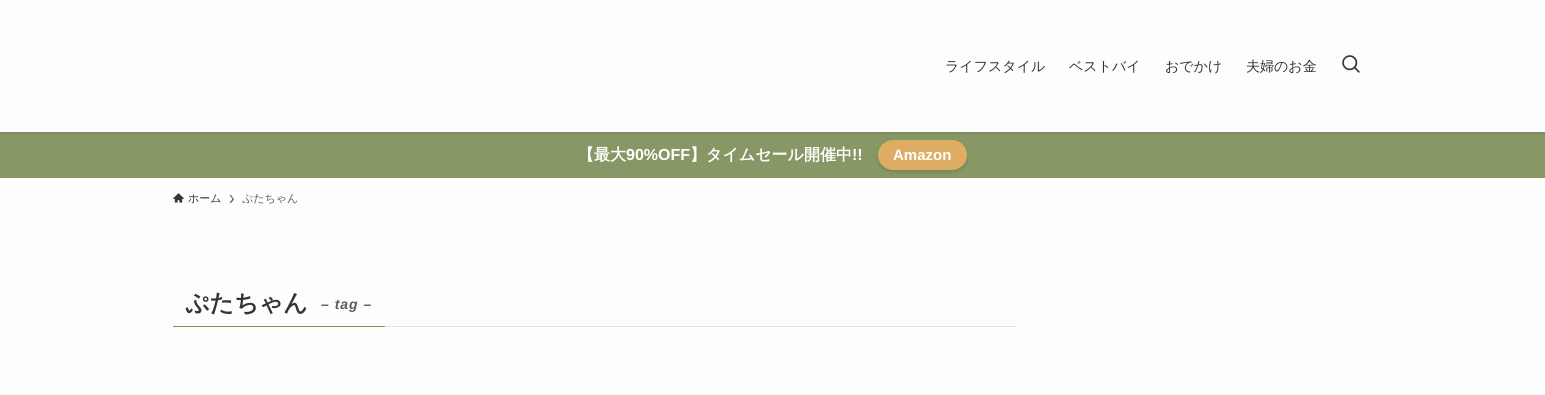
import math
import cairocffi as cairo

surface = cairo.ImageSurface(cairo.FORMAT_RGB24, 1545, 395)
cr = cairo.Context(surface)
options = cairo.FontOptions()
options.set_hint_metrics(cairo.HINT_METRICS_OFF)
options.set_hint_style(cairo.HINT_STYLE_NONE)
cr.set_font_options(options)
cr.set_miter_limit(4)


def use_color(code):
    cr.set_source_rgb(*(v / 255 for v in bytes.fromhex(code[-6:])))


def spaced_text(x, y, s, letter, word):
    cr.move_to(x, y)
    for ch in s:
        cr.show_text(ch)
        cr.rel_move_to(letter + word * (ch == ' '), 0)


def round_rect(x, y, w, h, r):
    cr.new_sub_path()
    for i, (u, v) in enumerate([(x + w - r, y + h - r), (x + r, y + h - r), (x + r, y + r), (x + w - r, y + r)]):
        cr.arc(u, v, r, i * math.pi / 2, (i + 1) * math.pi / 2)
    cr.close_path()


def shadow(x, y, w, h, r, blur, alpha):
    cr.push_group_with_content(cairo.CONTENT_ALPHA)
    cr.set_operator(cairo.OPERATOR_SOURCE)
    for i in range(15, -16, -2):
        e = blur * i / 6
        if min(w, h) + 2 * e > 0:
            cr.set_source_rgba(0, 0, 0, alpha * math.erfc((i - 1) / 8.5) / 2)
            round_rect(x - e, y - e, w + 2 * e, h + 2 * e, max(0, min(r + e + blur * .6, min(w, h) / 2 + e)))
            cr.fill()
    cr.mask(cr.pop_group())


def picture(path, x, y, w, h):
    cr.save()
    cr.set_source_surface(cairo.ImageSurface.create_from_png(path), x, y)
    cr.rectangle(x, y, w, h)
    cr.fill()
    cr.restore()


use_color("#fdfdfd")
cr.paint()
use_color("#879765")
cr.rectangle(0, 132, 1545, 46)
cr.fill()
cr.save()
cr.rectangle(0, 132, 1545, 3)
cr.clip()
use_color("#000000")
shadow(0, 1, 1545, 132, 0, 2, 0.12)
cr.restore()
cr.select_font_face("WenQuanYi Zen Hei Medium")
cr.set_font_size(14)
use_color("#333333")
cr.move_to(945, 71)
cr.show_text("ライフスタイル")
cr.move_to(1069, 71)
cr.show_text("ベストバイ")
cr.move_to(1165, 71)
cr.show_text("おでかけ")
cr.move_to(1246, 71)
cr.show_text("夫婦のお金")
picture("img1.png", 1342, 55, 18, 18)
cr.select_font_face("WenQuanYi Zen Hei", cairo.FONT_SLANT_NORMAL, cairo.FONT_WEIGHT_BOLD)
cr.set_font_size(16)
use_color("#ffffff")
cr.move_to(578, 160)
cr.show_text("【最大")
cr.select_font_face("Liberation Sans", cairo.FONT_SLANT_NORMAL, cairo.FONT_WEIGHT_BOLD)
cr.move_to(626, 160)
cr.show_text("90%OFF")
cr.select_font_face("WenQuanYi Zen Hei", cairo.FONT_SLANT_NORMAL, cairo.FONT_WEIGHT_BOLD)
cr.move_to(690, 160)
cr.show_text("】タイムセール開催中")
cr.select_font_face("Liberation Sans", cairo.FONT_SLANT_NORMAL, cairo.FONT_WEIGHT_BOLD)
cr.move_to(852, 160)
cr.show_text("!!")
use_color("#000000")
shadow(878, 142, 89, 30, 15, 2, 0.12)
use_color("#ddad63")
round_rect(878, 140, 89, 30, 15)
cr.fill()
cr.set_font_size(15)
use_color("#ffffff")
cr.move_to(893, 160)
cr.show_text("Amazon")
picture("img2.png", 173, 193, 11, 10)
cr.select_font_face("WenQuanYi Zen Hei Medium")
cr.set_font_size(11)
use_color("#333333")
cr.move_to(188, 202)
cr.show_text("ホーム")
use_color("#5b5b5b")
cr.new_path()
cr.move_to(231, 195)
cr.line_to(229.5, 195)
cr.line_to(232.5, 199)
cr.line_to(229.5, 203)
cr.line_to(231, 203)
cr.line_to(234, 199.5)
cr.close_path()
cr.fill()
cr.move_to(242, 202)
cr.show_text("ぷたちゃん")
use_color("#e2e2e2")
cr.rectangle(385, 326, 632, 1)
cr.fill()
use_color("#80915d")
cr.rectangle(173, 326, 212, 1)
cr.fill()
cr.select_font_face("WenQuanYi Zen Hei", cairo.FONT_SLANT_NORMAL, cairo.FONT_WEIGHT_BOLD)
cr.set_font_size(24)
use_color("#333333")
cr.move_to(185, 311)
cr.show_text("ぷたちゃん")
cr.select_font_face("Liberation Sans", cairo.FONT_SLANT_ITALIC, cairo.FONT_WEIGHT_BOLD)
cr.set_font_size(14)
use_color("#5b5b5b")
spaced_text(321, 309, "– tag –", 1, 0)
surface.write_to_png("result.png")
